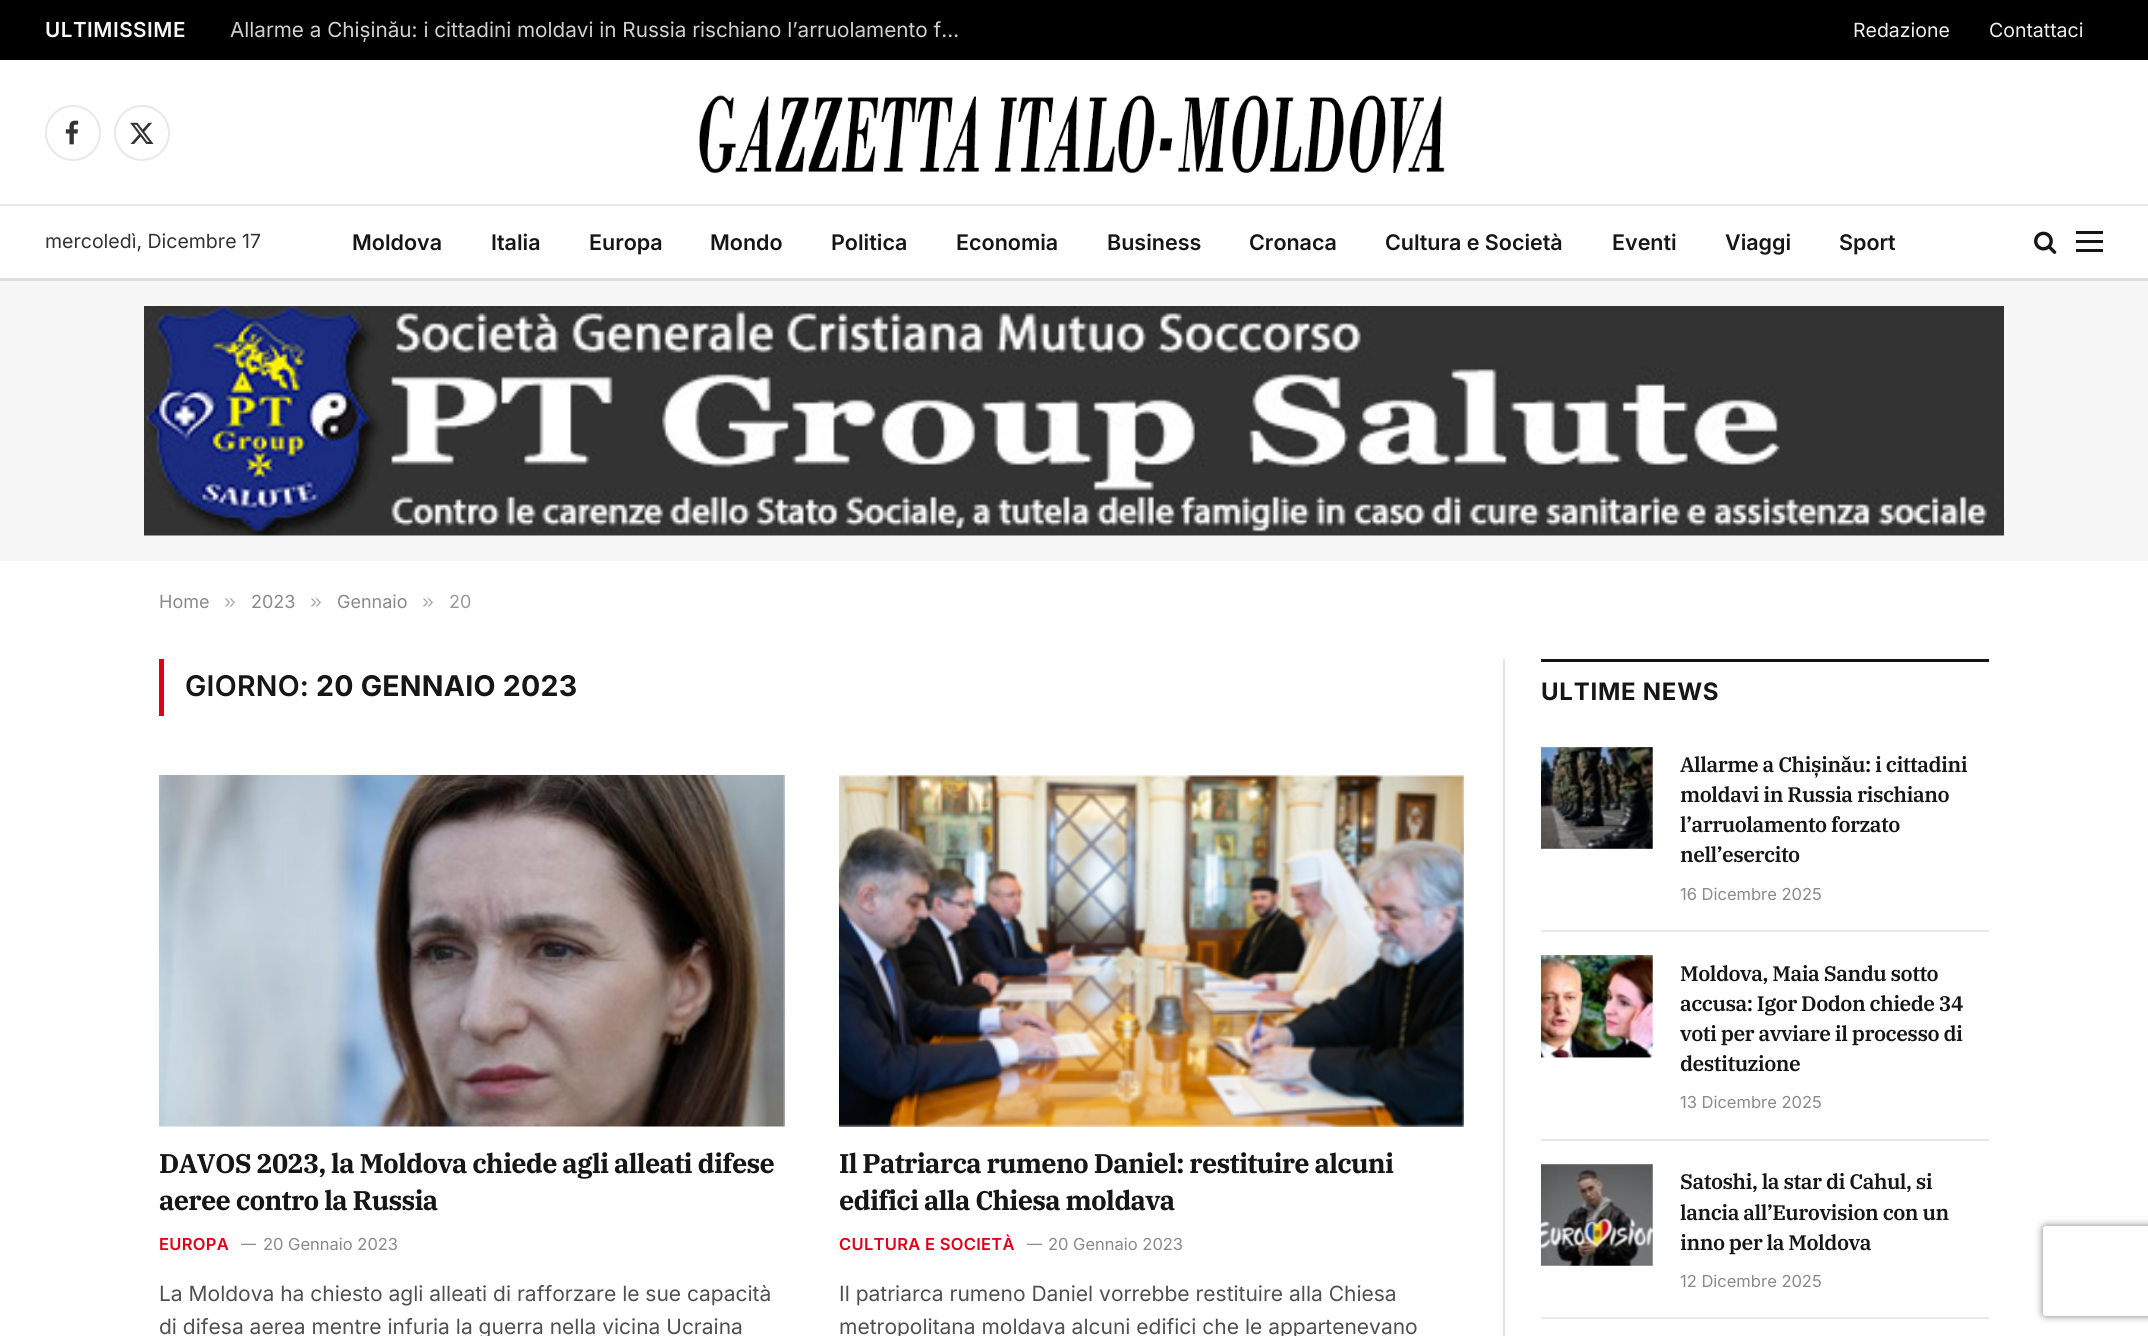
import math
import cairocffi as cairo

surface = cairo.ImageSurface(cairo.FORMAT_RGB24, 2148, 1336)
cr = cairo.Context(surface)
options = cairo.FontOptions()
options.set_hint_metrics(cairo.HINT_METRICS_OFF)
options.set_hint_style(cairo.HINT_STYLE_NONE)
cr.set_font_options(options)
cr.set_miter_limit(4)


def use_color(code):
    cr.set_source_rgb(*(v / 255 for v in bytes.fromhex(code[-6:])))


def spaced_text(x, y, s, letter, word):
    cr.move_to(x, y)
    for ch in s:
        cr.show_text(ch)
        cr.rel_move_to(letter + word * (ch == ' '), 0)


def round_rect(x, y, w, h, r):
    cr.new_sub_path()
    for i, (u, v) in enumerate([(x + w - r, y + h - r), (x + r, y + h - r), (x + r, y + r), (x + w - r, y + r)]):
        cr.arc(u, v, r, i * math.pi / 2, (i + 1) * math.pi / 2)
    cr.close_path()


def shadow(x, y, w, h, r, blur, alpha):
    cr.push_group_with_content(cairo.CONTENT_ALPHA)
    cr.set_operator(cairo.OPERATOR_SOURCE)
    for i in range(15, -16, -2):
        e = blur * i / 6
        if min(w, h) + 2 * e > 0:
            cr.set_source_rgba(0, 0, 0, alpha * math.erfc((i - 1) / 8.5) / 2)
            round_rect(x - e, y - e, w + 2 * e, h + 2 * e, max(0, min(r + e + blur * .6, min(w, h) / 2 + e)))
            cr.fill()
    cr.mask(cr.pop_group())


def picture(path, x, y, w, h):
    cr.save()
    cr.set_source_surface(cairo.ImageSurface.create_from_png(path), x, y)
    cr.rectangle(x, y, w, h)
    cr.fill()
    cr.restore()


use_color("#ffffff")
cr.paint()
use_color("#000000")
cr.rectangle(0, 0, 2148, 60)
cr.fill()
cr.select_font_face("Inter SemiBold")
cr.set_font_size(20.7)
use_color("#f7f7f7")
spaced_text(45, 37, "ULTIMISSIME", 0.5, 0)
cr.select_font_face("Inter")
use_color("#d1d1d1")
cr.move_to(230, 37)
cr.show_text("Allarme a Chișinău: i cittadini moldavi in Russia rischiano l’arruolamento f…")
cr.set_font_size(19.5)
use_color("#f0f0f0")
cr.move_to(1853, 37)
cr.show_text("Redazione")
cr.move_to(1989, 37)
cr.show_text("Contattaci")
cr.new_path()
cr.arc(73, 133, 27, 0, 2 * math.pi)
use_color("#e8e8e8")
cr.stroke()
picture("img1.png", 65, 120, 14, 25)
cr.arc(142, 133, 27, 0, 2 * math.pi)
cr.stroke()
picture("img2.png", 130, 122, 24, 22)
picture("img3.png", 699, 95, 746, 78)
cr.rectangle(0, 204, 2148, 2)
cr.fill()
use_color("#dedede")
cr.rectangle(0, 278, 2148, 3)
cr.fill()
use_color("#333333")
cr.move_to(45, 248)
cr.show_text("mercoledì, Dicembre 17")
cr.select_font_face("Inter SemiBold")
cr.set_font_size(21.5)
use_color("#161616")
cr.move_to(352, 250)
cr.show_text("Moldova")
cr.move_to(491, 250)
cr.show_text("Italia")
cr.move_to(589, 250)
cr.show_text("Europa")
cr.move_to(710, 250)
cr.show_text("Mondo")
cr.move_to(831, 250)
cr.show_text("Politica")
cr.move_to(956, 250)
cr.show_text("Economia")
cr.move_to(1107, 250)
cr.show_text("Business")
cr.move_to(1249, 250)
cr.show_text("Cronaca")
cr.move_to(1385, 250)
cr.show_text("Cultura e Società")
cr.move_to(1612, 250)
cr.show_text("Eventi")
cr.move_to(1725, 250)
cr.show_text("Viaggi")
cr.move_to(1839, 250)
cr.show_text("Sport")
picture("img4.png", 2034, 231, 23, 23)
cr.rectangle(2076, 249, 27, 3)
cr.fill()
cr.rectangle(2076, 231, 27, 3)
cr.fill()
cr.rectangle(2076, 240, 27, 3)
cr.fill()
use_color("#f7f7f7")
cr.rectangle(0, 281, 2148, 280)
cr.fill()
picture("img5.png", 144, 306, 1860, 230)
cr.select_font_face("Inter")
cr.set_font_size(18)
use_color("#8a8a8a")
cr.move_to(159, 608)
cr.show_text("Home")
cr.select_font_face("Liberation Sans")
cr.set_font_size(21)
use_color("#adadad")
cr.move_to(224, 608)
cr.show_text("»")
cr.select_font_face("Inter")
cr.set_font_size(18)
use_color("#8a8a8a")
cr.move_to(251, 608)
cr.show_text("2023")
cr.select_font_face("Liberation Sans")
cr.set_font_size(21)
use_color("#adadad")
cr.move_to(310, 608)
cr.show_text("»")
cr.select_font_face("Inter")
cr.set_font_size(18)
use_color("#8a8a8a")
cr.move_to(337, 608)
cr.show_text("Gennaio")
cr.select_font_face("Liberation Sans")
cr.set_font_size(21)
use_color("#adadad")
cr.move_to(422, 608)
cr.show_text("»")
cr.select_font_face("Inter")
cr.set_font_size(18)
use_color("#999999")
cr.move_to(449, 608)
cr.show_text("20")
use_color("#dd0017")
cr.rectangle(159, 659, 5, 57)
cr.fill()
cr.select_font_face("Inter SemiBold")
cr.set_font_size(28.5)
use_color("#161616")
spaced_text(185, 696, "GIORNO:", 0.25, 0)
cr.select_font_face("Inter", cairo.FONT_SLANT_NORMAL, cairo.FONT_WEIGHT_BOLD)
spaced_text(316, 696, "20 GENNAIO 2023", 0.25, 0)
picture("img6.png", 159, 775, 626, 352)
cr.select_font_face("IBM Plex Serif", cairo.FONT_SLANT_NORMAL, cairo.FONT_WEIGHT_BOLD)
cr.set_font_size(27)
spaced_text(159, 1173, "DAVOS 2023, la Moldova chiede agli alleati difese", -0.7, 0)
spaced_text(159, 1210, "aeree contro la Russia", -0.7, 0)
cr.select_font_face("Inter SemiBold")
cr.set_font_size(16.5)
use_color("#dd0017")
spaced_text(159, 1250, "EUROPA", 0.3, 0)
cr.select_font_face("Inter")
cr.set_font_size(15)
use_color("#8a8a8a")
cr.move_to(241, 1249)
cr.show_text("—")
cr.set_font_size(16.5)
cr.move_to(263, 1250)
cr.show_text("20 Gennaio 2023")
cr.set_font_size(21)
use_color("#505050")
cr.move_to(159, 1301)
cr.show_text("La Moldova ha chiesto agli alleati di rafforzare le sue capacità")
cr.move_to(159, 1334)
cr.show_text("di difesa aerea mentre infuria la guerra nella vicina Ucraina")
picture("img7.png", 839, 775, 625, 352)
cr.select_font_face("IBM Plex Serif", cairo.FONT_SLANT_NORMAL, cairo.FONT_WEIGHT_BOLD)
cr.set_font_size(27)
use_color("#161616")
spaced_text(839, 1173, "Il Patriarca rumeno Daniel: restituire alcuni", -0.7, 0)
spaced_text(839, 1210, "edifici alla Chiesa moldava", -0.7, 0)
cr.select_font_face("Inter SemiBold")
cr.set_font_size(16.5)
use_color("#dd0017")
spaced_text(839, 1250, "CULTURA E SOCIETÀ", 0.3, 0)
cr.select_font_face("Inter")
cr.set_font_size(15)
use_color("#8a8a8a")
cr.move_to(1027, 1249)
cr.show_text("—")
cr.set_font_size(16.5)
cr.move_to(1048, 1250)
cr.show_text("20 Gennaio 2023")
cr.set_font_size(21)
use_color("#505050")
cr.move_to(839, 1301)
cr.show_text("Il patriarca rumeno Daniel vorrebbe restituire alla Chiesa")
cr.move_to(839, 1334)
cr.show_text("metropolitana moldava alcuni edifici che le appartenevano")
use_color("#e2e2e2")
cr.rectangle(1503, 659, 2, 677)
cr.fill()
use_color("#161616")
cr.rectangle(1541, 659, 448, 3)
cr.fill()
cr.select_font_face("Inter", cairo.FONT_SLANT_NORMAL, cairo.FONT_WEIGHT_BOLD)
cr.set_font_size(24)
spaced_text(1541, 700, "ULTIME NEWS", 0.75, 0)
picture("img8.png", 1541, 747, 112, 102)
cr.select_font_face("IBM Plex Serif SemiBold")
cr.set_font_size(21)
spaced_text(1680, 772, "Allarme a Chișinău: i cittadini", -0.5, 0)
spaced_text(1680, 802, "moldavi in Russia rischiano", -0.5, 0)
spaced_text(1680, 832, "l’arruolamento forzato", -0.5, 0)
spaced_text(1680, 862, "nell’esercito", -0.5, 0)
cr.select_font_face("Inter")
cr.set_font_size(16.5)
use_color("#8a8a8a")
cr.move_to(1680, 900)
cr.show_text("16 Dicembre 2025")
use_color("#e8e8e8")
cr.rectangle(1541, 930, 448, 2)
cr.fill()
picture("img9.png", 1541, 955, 112, 103)
cr.select_font_face("IBM Plex Serif SemiBold")
cr.set_font_size(21)
use_color("#161616")
spaced_text(1680, 981, "Moldova, Maia Sandu sotto", -0.5, 0)
spaced_text(1680, 1011, "accusa: Igor Dodon chiede 34", -0.5, 0)
spaced_text(1680, 1041, "voti per avviare il processo di", -0.5, 0)
spaced_text(1680, 1071, "destituzione", -0.5, 0)
cr.select_font_face("Inter")
cr.set_font_size(16.5)
use_color("#8a8a8a")
cr.move_to(1680, 1108)
cr.show_text("13 Dicembre 2025")
use_color("#e8e8e8")
cr.rectangle(1541, 1139, 448, 2)
cr.fill()
picture("img10.png", 1541, 1164, 112, 102)
cr.select_font_face("IBM Plex Serif SemiBold")
cr.set_font_size(21)
use_color("#161616")
spaced_text(1680, 1189, "Satoshi, la star di Cahul, si", -0.5, 0)
spaced_text(1680, 1220, "lancia all’Eurovision con un", -0.5, 0)
spaced_text(1680, 1250, "inno per la Moldova", -0.5, 0)
cr.select_font_face("Inter")
cr.set_font_size(16.5)
use_color("#8a8a8a")
cr.move_to(1680, 1287)
cr.show_text("12 Dicembre 2025")
use_color("#e8e8e8")
cr.rectangle(1541, 1317, 448, 2)
cr.fill()
cr.save()
cr.set_fill_rule(cairo.FILL_RULE_EVEN_ODD)
cr.new_path()
cr.move_to(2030, 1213)
cr.line_to(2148, 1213)
cr.line_to(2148, 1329)
cr.line_to(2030, 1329)
cr.close_path()
cr.move_to(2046, 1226)
cr.line_to(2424, 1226)
cr.curve_to(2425.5, 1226, 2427, 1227.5, 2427, 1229)
cr.line_to(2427, 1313)
cr.curve_to(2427, 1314.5, 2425.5, 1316, 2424, 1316)
cr.line_to(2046, 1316)
cr.curve_to(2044.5, 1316, 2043, 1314.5, 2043, 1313)
cr.line_to(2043, 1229)
cr.curve_to(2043, 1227.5, 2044.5, 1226, 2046, 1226)
cr.close_path()
cr.clip()
use_color("#808080")
shadow(2043, 1226, 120, 90, 3, 4, 1)
cr.restore()
surface.write_to_png("result.png")
